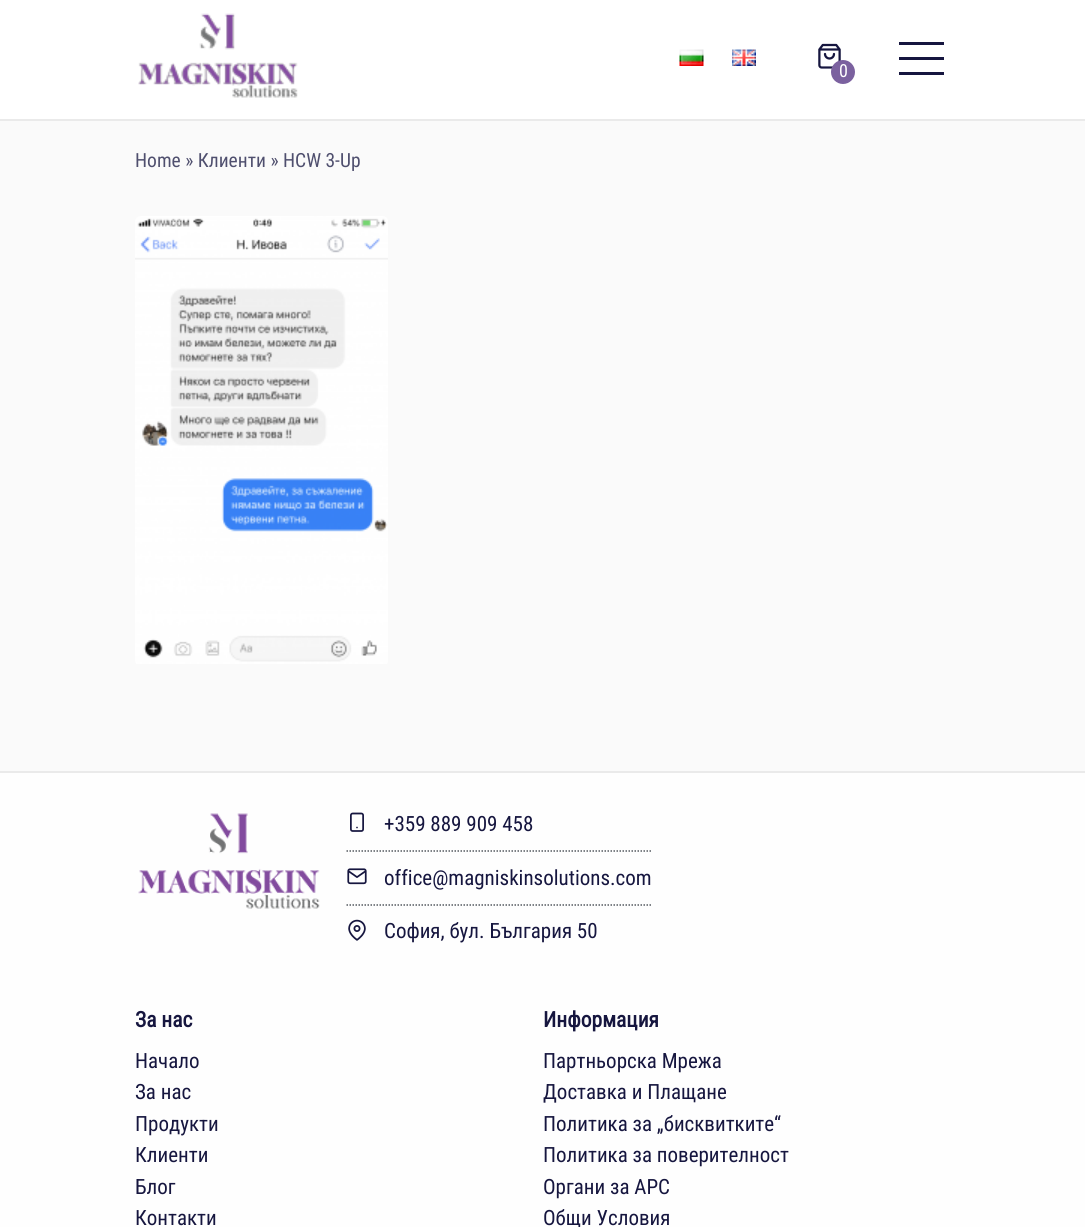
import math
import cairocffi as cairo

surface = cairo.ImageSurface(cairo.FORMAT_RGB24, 1085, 1227)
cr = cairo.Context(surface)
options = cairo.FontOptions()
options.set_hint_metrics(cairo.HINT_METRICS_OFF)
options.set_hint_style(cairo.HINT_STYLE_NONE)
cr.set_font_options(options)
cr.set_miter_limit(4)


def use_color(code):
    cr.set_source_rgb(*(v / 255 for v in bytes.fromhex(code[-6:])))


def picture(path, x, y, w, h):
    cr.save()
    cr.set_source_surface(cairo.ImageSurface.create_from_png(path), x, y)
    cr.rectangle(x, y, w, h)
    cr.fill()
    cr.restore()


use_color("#fafafa")
cr.paint()
use_color("#ffffff")
cr.rectangle(0, 0, 1085, 119)
cr.fill()
use_color("#eaeaea")
cr.rectangle(0, 119, 1085, 2)
cr.fill()
picture("img1.png", 138, 13, 160, 85)
picture("img2.png", 679, 49, 25, 17)
picture("img3.png", 732, 49, 24, 17)
use_color("#16163f")
cr.rectangle(899, 42, 45, 3)
cr.fill()
cr.rectangle(899, 57, 45, 3)
cr.fill()
cr.rectangle(899, 72, 45, 3)
cr.fill()
picture("img4.png", 818, 43, 23, 26)
use_color("#7b619f")
cr.arc(843, 72, 12, 0, 2 * math.pi)
cr.fill()
cr.select_font_face("Roboto Condensed")
cr.set_font_size(18)
use_color("#ffffff")
cr.move_to(839, 77)
cr.show_text("0")
cr.set_font_size(19.5)
use_color("#4f4f6e")
cr.move_to(135, 167)
cr.show_text("Home » Клиенти » HCW 3-Up")
picture("img5.png", 135, 216, 253, 448)
use_color("#fefefe")
cr.rectangle(0, 773, 1085, 454)
cr.fill()
use_color("#eaeaea")
cr.rectangle(0, 771, 1085, 2)
cr.fill()
picture("img6.png", 138, 813, 182, 96)
cr.new_path()
cr.move_to(346.5, 851)
cr.line_to(652.5, 851)
use_color("#54595f")
cr.set_line_width(1.5)
cr.set_dash([1.5, 1.5])
cr.stroke()
picture("img7.png", 350, 812, 14, 20)
cr.set_font_size(21)
use_color("#16163f")
cr.move_to(384, 831)
cr.show_text("+359 889 909 458")
cr.new_path()
cr.move_to(346.5, 905)
cr.line_to(652.5, 905)
use_color("#54595f")
cr.stroke()
picture("img8.png", 347, 868, 20, 17)
use_color("#16163f")
cr.move_to(384, 885)
cr.show_text("office@magniskinsolutions.com")
picture("img9.png", 348, 919, 18, 22)
cr.move_to(384, 938)
cr.show_text("София, бул. България 50")
cr.select_font_face("Roboto Condensed", cairo.FONT_SLANT_NORMAL, cairo.FONT_WEIGHT_BOLD)
cr.set_font_size(21.5)
cr.move_to(135, 1027)
cr.show_text("За нас")
cr.select_font_face("Roboto Condensed")
cr.set_font_size(21)
cr.move_to(135, 1068)
cr.show_text("Начало")
cr.move_to(135, 1099)
cr.show_text("За нас")
cr.move_to(135, 1131)
cr.show_text("Продукти")
cr.move_to(135, 1162)
cr.show_text("Клиенти")
cr.move_to(135, 1194)
cr.show_text("Блог")
cr.move_to(135, 1225)
cr.show_text("Контакти")
cr.select_font_face("Roboto Condensed", cairo.FONT_SLANT_NORMAL, cairo.FONT_WEIGHT_BOLD)
cr.set_font_size(21.5)
cr.move_to(543, 1027)
cr.show_text("Информация")
cr.select_font_face("Roboto Condensed")
cr.set_font_size(21)
cr.move_to(543, 1068)
cr.show_text("Партньорска Мрежа")
cr.move_to(543, 1099)
cr.show_text("Доставка и Плащане")
cr.move_to(543, 1131)
cr.show_text("Политика за „бисквитките“")
cr.move_to(543, 1162)
cr.show_text("Политика за поверителност")
cr.move_to(543, 1194)
cr.show_text("Органи за АРС")
cr.move_to(543, 1225)
cr.show_text("Общи Условия")
surface.write_to_png("result.png")
